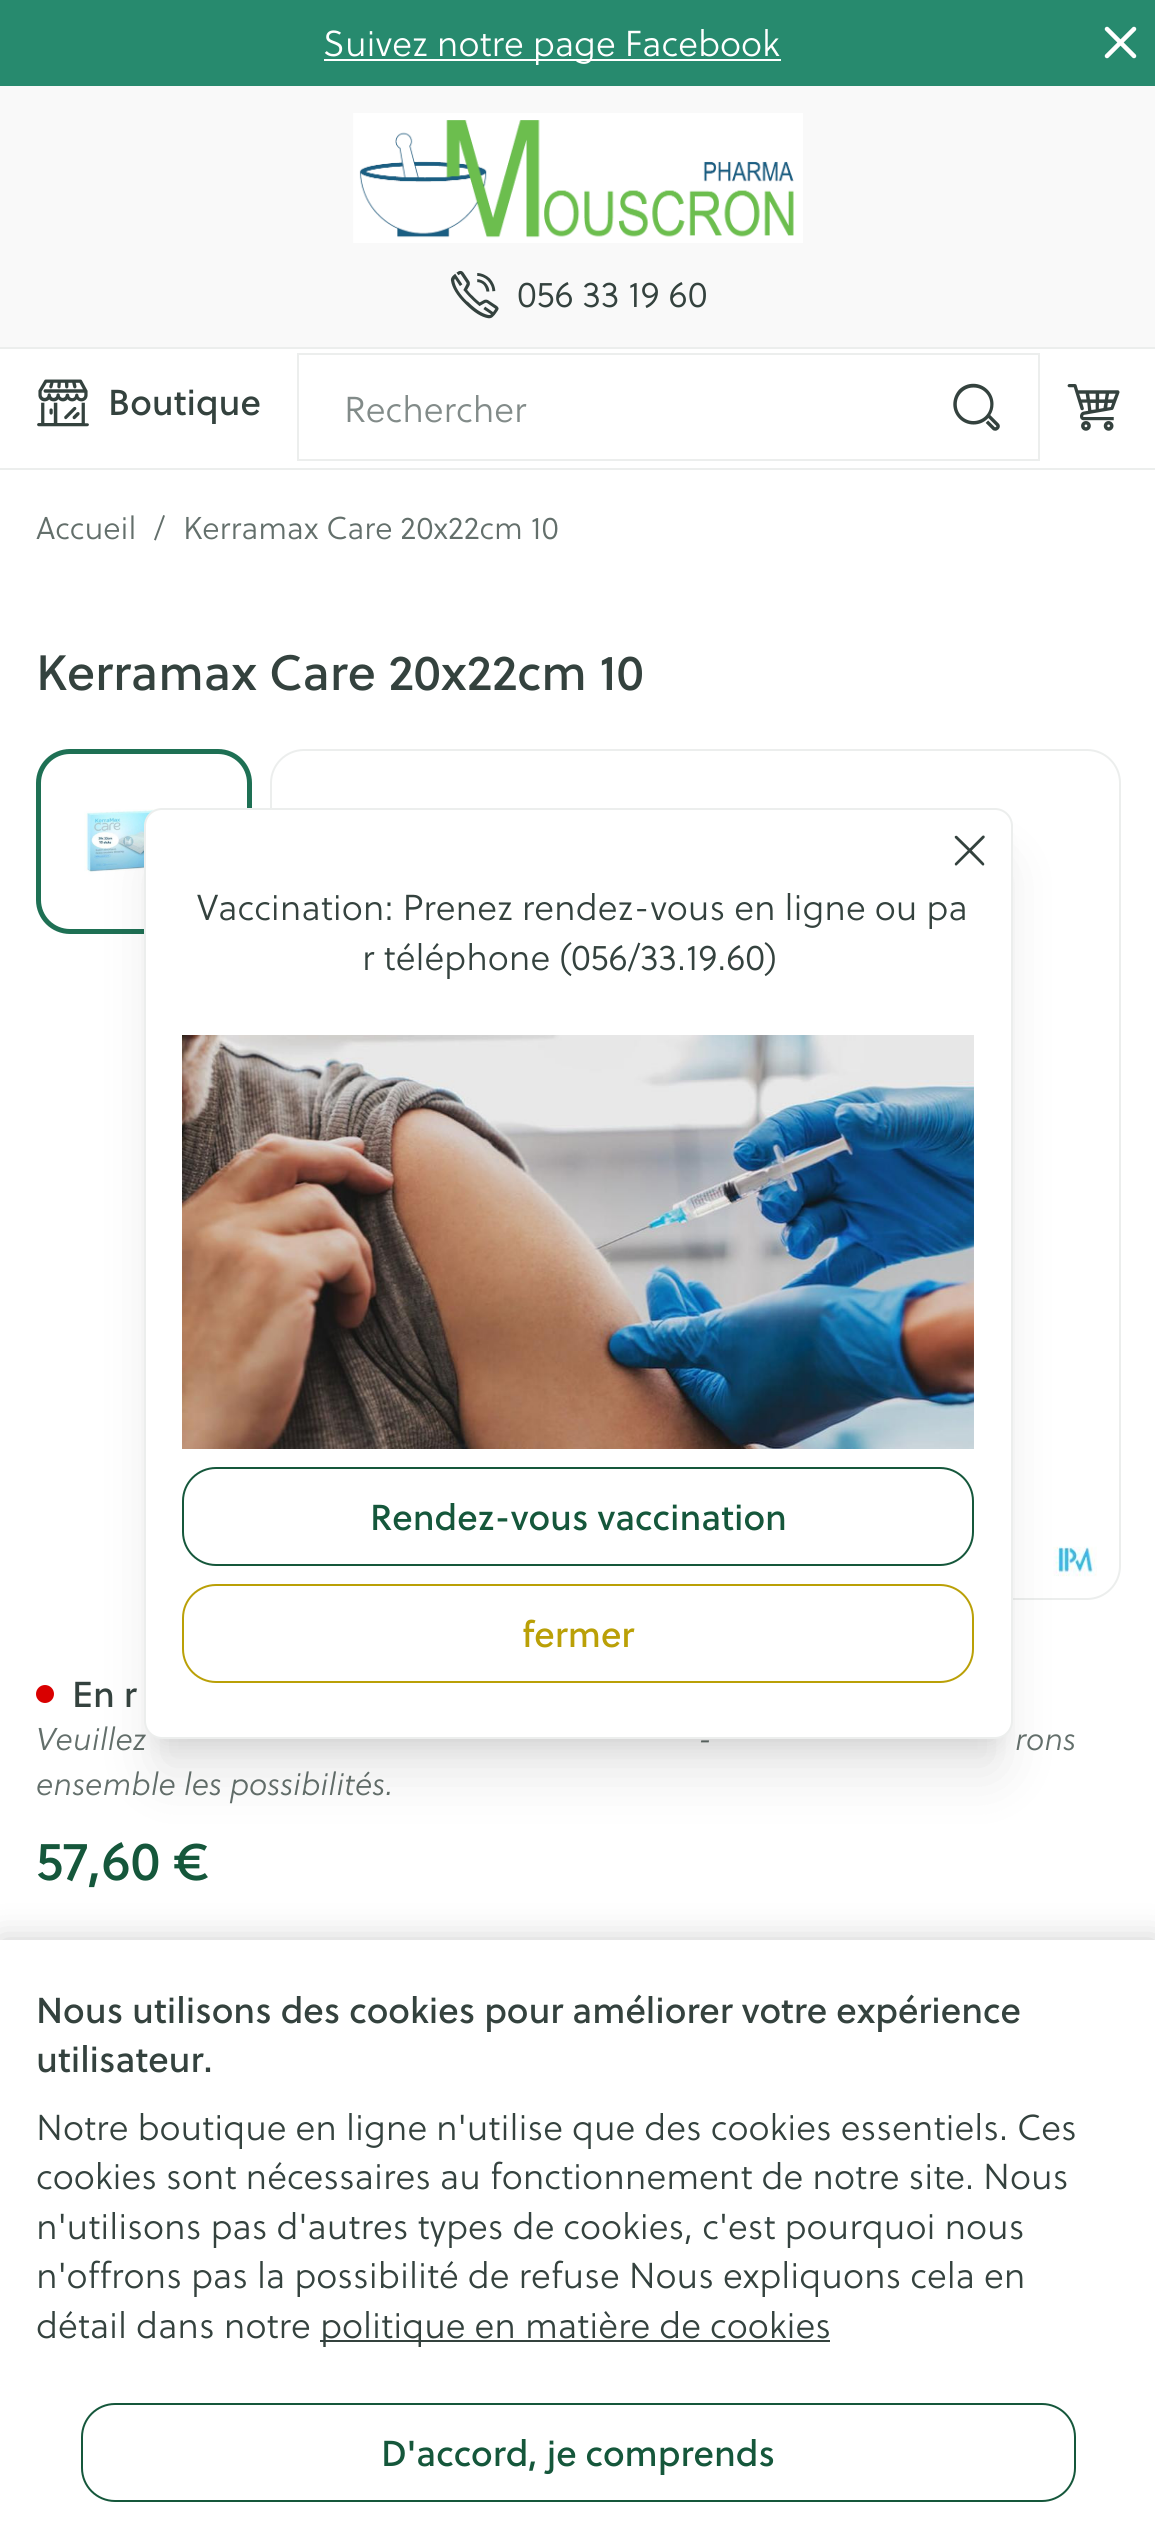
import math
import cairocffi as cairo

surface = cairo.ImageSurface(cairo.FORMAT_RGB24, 1155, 2545)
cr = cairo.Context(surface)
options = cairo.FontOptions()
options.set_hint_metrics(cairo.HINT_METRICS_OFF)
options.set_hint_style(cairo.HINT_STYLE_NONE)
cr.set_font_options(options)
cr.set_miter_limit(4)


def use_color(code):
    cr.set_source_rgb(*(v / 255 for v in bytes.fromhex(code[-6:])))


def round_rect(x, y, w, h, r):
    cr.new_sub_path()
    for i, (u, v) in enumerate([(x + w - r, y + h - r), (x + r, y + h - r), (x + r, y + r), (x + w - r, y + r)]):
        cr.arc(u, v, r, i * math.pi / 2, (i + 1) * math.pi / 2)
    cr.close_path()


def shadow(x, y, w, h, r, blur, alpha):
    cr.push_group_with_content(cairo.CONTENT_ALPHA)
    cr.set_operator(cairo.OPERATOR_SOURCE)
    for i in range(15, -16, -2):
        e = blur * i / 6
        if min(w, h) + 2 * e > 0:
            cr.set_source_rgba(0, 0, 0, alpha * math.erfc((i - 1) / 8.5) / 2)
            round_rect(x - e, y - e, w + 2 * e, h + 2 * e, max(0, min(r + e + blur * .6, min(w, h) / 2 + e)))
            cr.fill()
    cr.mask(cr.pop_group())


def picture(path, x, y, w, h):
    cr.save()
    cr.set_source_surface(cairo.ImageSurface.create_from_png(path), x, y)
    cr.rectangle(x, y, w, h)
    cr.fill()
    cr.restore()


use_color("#ffffff")
cr.paint()
use_color("#278a6e")
cr.rectangle(0, 0, 1155, 86)
cr.fill()
use_color("#ffffff")
cr.rectangle(324, 59, 457, 2)
cr.fill()
cr.select_font_face("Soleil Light")
cr.set_font_size(36)
cr.move_to(323, 56)
cr.show_text("Suivez notre page Facebook")
cr.new_path()
cr.move_to(1107, 56)
cr.line_to(1134, 29)
cr.move_to(1107, 29)
cr.line_to(1134, 56)
cr.set_line_width(4.5)
cr.set_line_cap(cairo.LINE_CAP_ROUND)
cr.set_line_join(cairo.LINE_JOIN_ROUND)
cr.stroke()
use_color("#f9f9f9")
cr.rectangle(0, 86, 1155, 261)
cr.fill()
picture("img1.png", 353, 113, 450, 130)
picture("img2.png", 450, 270, 49, 49)
use_color("#34423e")
cr.move_to(517, 307)
cr.show_text("056 33 19 60")
use_color("#eceeed")
cr.rectangle(0, 347, 1155, 2)
cr.fill()
cr.rectangle(0, 468, 1155, 2)
cr.fill()
picture("img3.png", 37, 379, 52, 48)
cr.select_font_face("Soleil")
use_color("#34423e")
cr.move_to(108, 415)
cr.show_text("Boutique")
cr.rectangle(298, 354, 741, 106)
use_color("#eceeed")
cr.set_line_width(2)
cr.set_line_cap(cairo.LINE_CAP_BUTT)
cr.set_line_join(cairo.LINE_JOIN_MITER)
cr.stroke()
cr.select_font_face("Soleil Light")
use_color("#828b89")
cr.move_to(344, 422)
cr.show_text("Rechercher")
picture("img4.png", 953, 383, 47, 48)
picture("img5.png", 1067, 384, 53, 47)
cr.set_font_size(31.5)
use_color("#636f6b")
cr.move_to(36, 539)
cr.show_text("Accueil")
cr.move_to(154, 539)
cr.show_text("/")
cr.move_to(183, 539)
cr.show_text("Kerramax Care 20x22cm 10")
cr.select_font_face("Soleil")
cr.set_font_size(49.5)
use_color("#34423e")
cr.move_to(36, 690)
cr.show_text("Kerramax Care 20x22cm 10")
round_rect(38.5, 751.5, 211, 180, 31.5)
use_color("#1e7054")
cr.set_line_width(5)
cr.stroke()
picture("img6.png", 84, 809, 72, 102)
round_rect(271, 750, 849, 849, 33)
use_color("#eceeed")
cr.set_line_width(2)
cr.stroke()
picture("img7.png", 1013, 976, 84, 601)
use_color("#d90000")
cr.arc(45, 1694, 9, 0, 2 * math.pi)
cr.fill()
cr.set_font_size(36)
use_color("#34423e")
cr.move_to(72, 1707)
cr.show_text("En r")
cr.select_font_face("Soleil Light", cairo.FONT_SLANT_ITALIC)
cr.set_font_size(31.5)
use_color("#636f6b")
cr.move_to(36, 1750)
cr.show_text("Veuillez")
cr.move_to(698, 1750)
cr.show_text("-")
cr.move_to(1015, 1750)
cr.show_text("rons")
cr.move_to(36, 1795)
cr.show_text("ensemble les possibilités.")
cr.select_font_face("Soleil")
cr.set_font_size(54)
use_color("#15573b")
cr.move_to(36, 1880)
cr.show_text("57,60 €")
use_color("#000000")
shadow(158, 839, 841, 905, 5, 11, 0.1)
shadow(155, 864, 846, 909, 7, 28, 0.1)
use_color("#ffffff")
round_rect(145, 809, 867, 929, 17)
cr.fill_preserve()
use_color("#eceeed")
cr.stroke()
picture("img8.png", 954, 835, 31, 31)
cr.select_font_face("Soleil Light")
cr.set_font_size(36)
use_color("#34423e")
cr.move_to(197, 920)
cr.show_text("Vaccination: Prenez rendez-vous en ligne ou pa")
cr.move_to(362, 970)
cr.show_text("r téléphone (056/33.19.60)")
picture("img9.png", 182, 1035, 792, 414)
round_rect(183, 1468, 790, 97, 33)
use_color("#15573b")
cr.stroke()
cr.select_font_face("Soleil")
cr.move_to(370, 1530)
cr.show_text("Rendez-vous vaccination")
round_rect(183, 1585, 790, 97, 33)
use_color("#baa007")
cr.stroke()
cr.move_to(522, 1647)
cr.show_text("fermer")
use_color("#000000")
shadow(0, 1940, 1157, 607, 0, 17, 0.2)
use_color("#ffffff")
cr.rectangle(0, 1940, 1155, 605)
cr.fill()
use_color("#34423e")
cr.move_to(36, 2023)
cr.show_text("Nous utilisons des cookies pour améliorer votre expérience")
cr.move_to(36, 2072)
cr.show_text("utilisateur.")
cr.select_font_face("Soleil Light")
cr.move_to(36, 2140)
cr.show_text("Notre boutique en ligne n'utilise que des cookies essentiels. Ces")
cr.move_to(36, 2189)
cr.show_text("cookies sont nécessaires au fonctionnement de notre site. Nous")
cr.move_to(36, 2239)
cr.show_text("n'utilisons pas d'autres types de cookies, c'est pourquoi nous")
cr.move_to(36, 2288)
cr.show_text("n'offrons pas la possibilité de refuse Nous expliquons cela en")
cr.move_to(36, 2338)
cr.show_text("détail dans notre")
cr.rectangle(320, 2340, 510, 2)
cr.fill()
cr.move_to(320, 2338)
cr.show_text("politique en matière de cookies")
round_rect(82, 2404, 993, 97, 33)
use_color("#15573b")
cr.stroke()
cr.select_font_face("Soleil")
cr.move_to(381, 2466)
cr.show_text("D'accord, je comprends")
surface.write_to_png("result.png")
